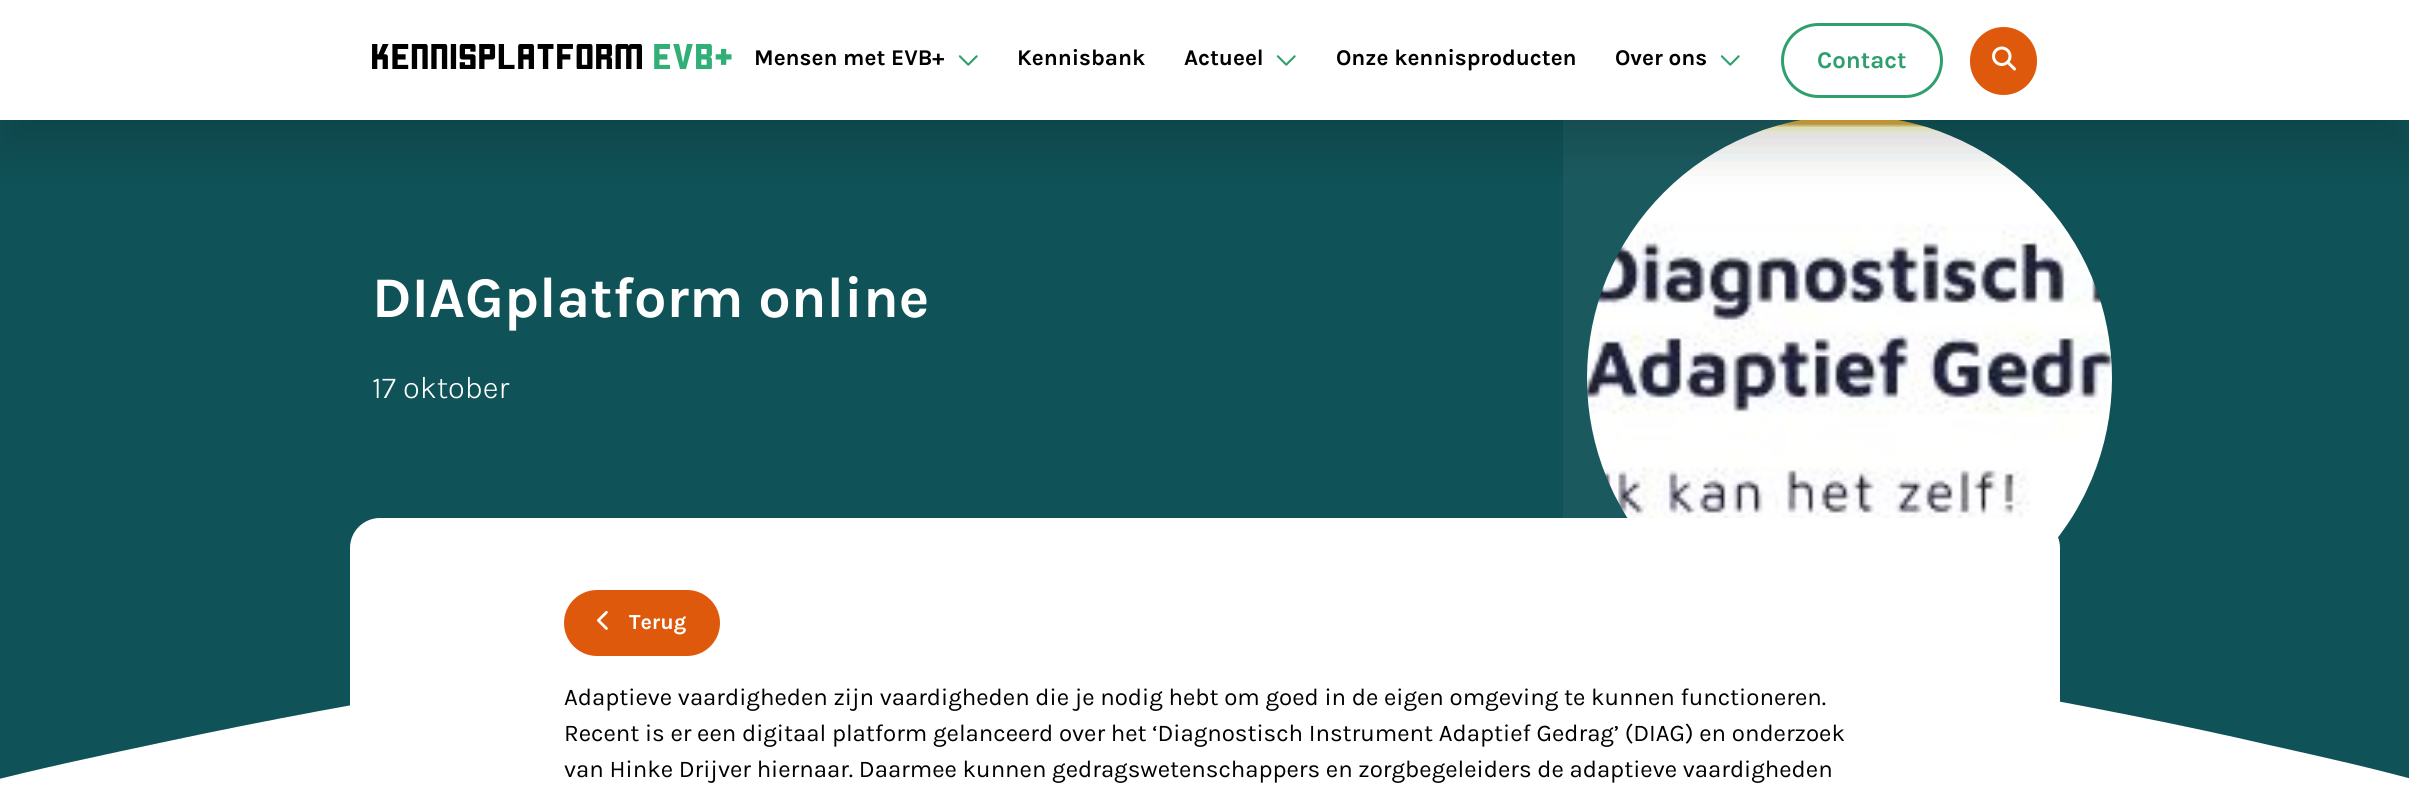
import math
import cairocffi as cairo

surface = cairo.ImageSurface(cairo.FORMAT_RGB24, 2409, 790)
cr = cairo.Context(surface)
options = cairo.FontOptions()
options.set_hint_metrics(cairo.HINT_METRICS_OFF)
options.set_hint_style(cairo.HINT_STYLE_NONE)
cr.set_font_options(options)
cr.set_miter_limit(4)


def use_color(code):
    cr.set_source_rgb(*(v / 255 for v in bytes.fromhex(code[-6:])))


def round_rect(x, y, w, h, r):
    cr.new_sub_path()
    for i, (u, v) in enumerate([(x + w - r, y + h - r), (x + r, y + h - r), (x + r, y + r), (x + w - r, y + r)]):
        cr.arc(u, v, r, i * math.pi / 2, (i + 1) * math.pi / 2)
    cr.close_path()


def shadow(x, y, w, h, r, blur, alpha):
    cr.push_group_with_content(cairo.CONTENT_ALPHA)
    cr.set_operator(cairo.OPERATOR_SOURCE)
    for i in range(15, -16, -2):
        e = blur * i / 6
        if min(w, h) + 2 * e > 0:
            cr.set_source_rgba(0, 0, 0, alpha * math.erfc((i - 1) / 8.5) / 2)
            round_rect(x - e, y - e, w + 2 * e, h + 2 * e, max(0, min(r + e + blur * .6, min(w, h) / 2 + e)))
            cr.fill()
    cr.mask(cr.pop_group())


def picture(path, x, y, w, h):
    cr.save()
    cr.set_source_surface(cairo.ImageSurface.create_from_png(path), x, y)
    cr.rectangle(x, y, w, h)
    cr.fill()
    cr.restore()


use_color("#ffffff")
cr.paint()
use_color("#0f5257")
cr.rectangle(0, 120, 2409, 471)
cr.fill()
cr.set_source_rgba(1, 1, 1, 0.05)
cr.rectangle(1563, 120, 238, 398)
cr.fill()
picture("img4.png", 1587, 120, 525, 418)
use_color("#000000")
shadow(0, 30, 2409, 120, 0, 22.5, 0.15)
use_color("#ffffff")
cr.rectangle(0, 0, 2409, 120)
cr.fill()
picture("img1.png", 372, 44, 360, 25)
cr.select_font_face("Karla", cairo.FONT_SLANT_NORMAL, cairo.FONT_WEIGHT_BOLD)
cr.set_font_size(22.5)
use_color("#000000")
cr.move_to(754, 65)
cr.show_text("Mensen met EVB+")
picture("img2.png", 958, 55, 20, 11)
cr.move_to(1017, 65)
cr.show_text("Kennisbank")
cr.move_to(1184, 65)
cr.show_text("Actueel")
picture("img2.png", 1276, 55, 20, 11)
cr.move_to(1336, 65)
cr.show_text("Onze kennisproducten")
cr.move_to(1615, 65)
cr.show_text("Over ons")
picture("img2.png", 1720, 55, 20, 11)
round_rect(1782.5, 24.5, 159, 72, 36)
use_color("#2e9f6d")
cr.set_line_width(3)
cr.stroke()
cr.set_font_size(24)
cr.move_to(1817, 68)
cr.show_text("Contact")
use_color("#de590c")
round_rect(1970, 27, 67, 68, 33.5)
cr.fill()
picture("img3.png", 1992, 46, 24, 25)
cr.set_font_size(57.5)
use_color("#ffffff")
cr.move_to(372, 317)
cr.show_text("DIAGplatform online")
cr.select_font_face("Karla Light")
cr.set_font_size(31)
cr.move_to(372, 398)
cr.show_text("17 oktober")
use_color("#0f5257")
cr.new_path()
cr.move_to(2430, 784)
cr.curve_to(2377, 769, 2323, 757, 2269, 745)
cr.curve_to(2183, 725, 2095, 708, 2008, 692)
cr.curve_to(1749, 647, 1487, 618, 1224, 618)
cr.curve_to(973, 618, 722, 644, 474, 684)
cr.curve_to(370, 701, 267, 720, 164, 742)
cr.curve_to(103, 755, 41, 768, -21, 784)
cr.line_to(-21, 591)
cr.line_to(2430, 591)
cr.close_path()
cr.fill()
use_color("#ffffff")
round_rect(350, 518, 1710, 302, 30)
cr.fill()
use_color("#de590c")
round_rect(564, 590, 156, 66, 33)
cr.fill()
picture("img5.png", 597, 611, 11, 19)
cr.select_font_face("Karla", cairo.FONT_SLANT_NORMAL, cairo.FONT_WEIGHT_BOLD)
cr.set_font_size(21.5)
use_color("#ffffff")
cr.move_to(629, 629)
cr.show_text("Terug")
cr.select_font_face("Karla")
cr.set_font_size(24)
use_color("#000000")
cr.move_to(564, 705)
cr.show_text("Adaptieve vaardigheden zijn vaardigheden die je nodig hebt om goed in de eigen omgeving te kunnen functioneren.")
cr.move_to(564, 741)
cr.show_text("Recent is er een digitaal platform gelanceerd over het ‘Diagnostisch Instrument Adaptief Gedrag’ (DIAG) en onderzoek")
cr.move_to(564, 777)
cr.show_text("van Hinke Drijver hiernaar. Daarmee kunnen gedragswetenschappers en zorgbegeleiders de adaptieve vaardigheden")
surface.write_to_png("result.png")
